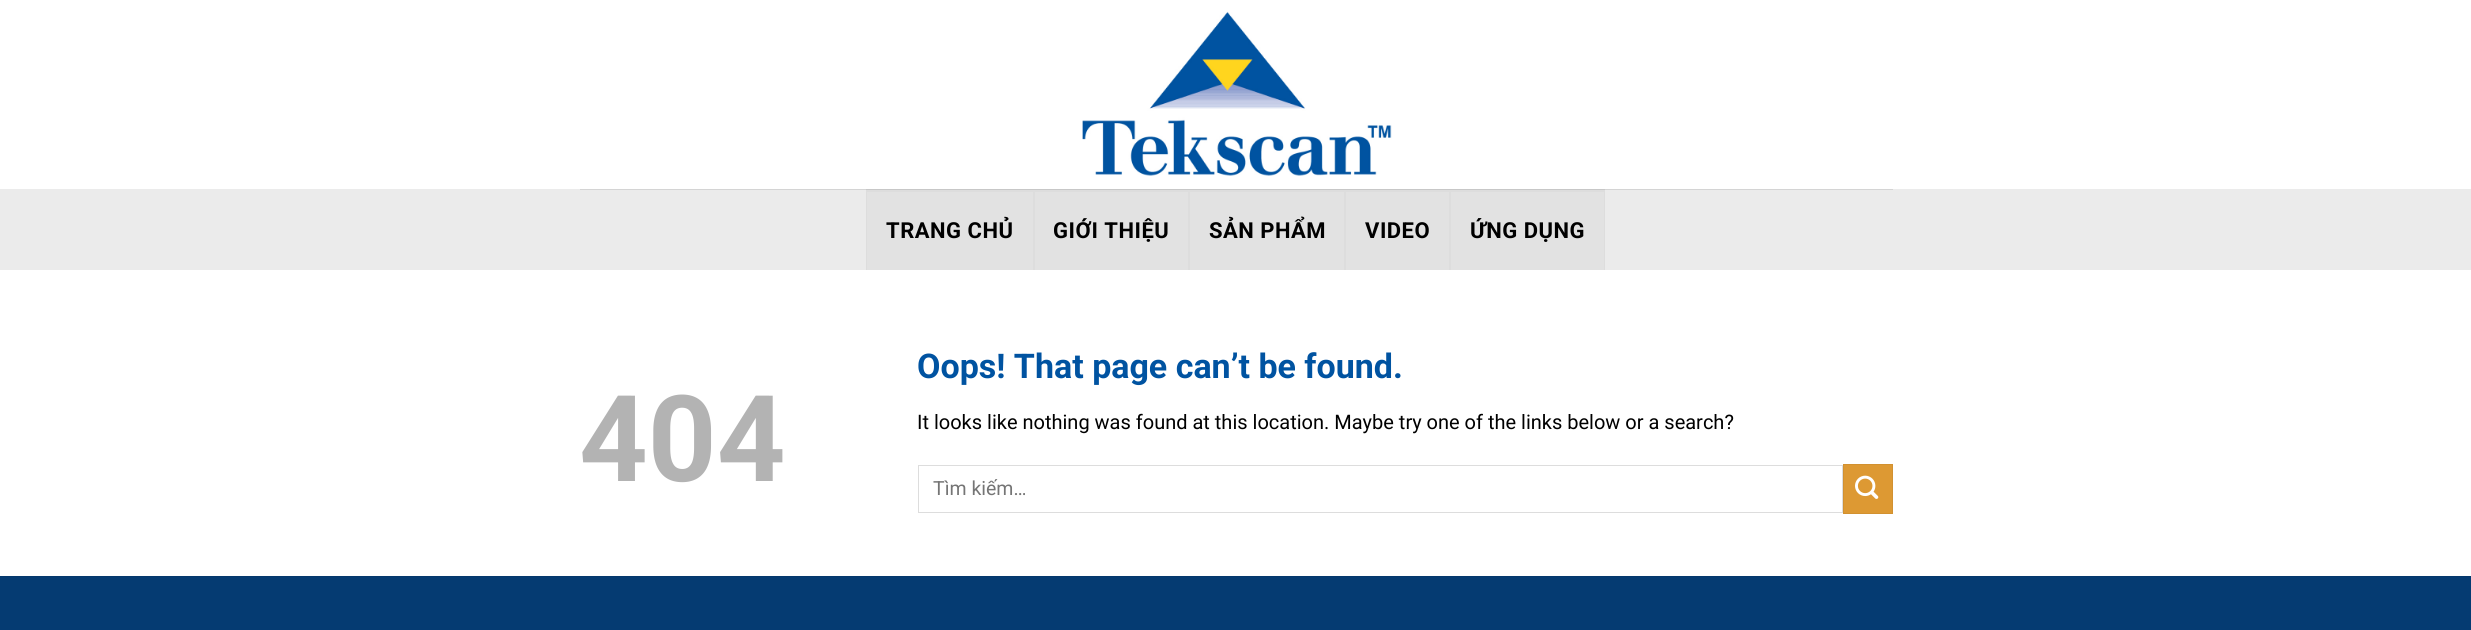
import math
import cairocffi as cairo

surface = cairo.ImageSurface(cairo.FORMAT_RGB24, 2471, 630)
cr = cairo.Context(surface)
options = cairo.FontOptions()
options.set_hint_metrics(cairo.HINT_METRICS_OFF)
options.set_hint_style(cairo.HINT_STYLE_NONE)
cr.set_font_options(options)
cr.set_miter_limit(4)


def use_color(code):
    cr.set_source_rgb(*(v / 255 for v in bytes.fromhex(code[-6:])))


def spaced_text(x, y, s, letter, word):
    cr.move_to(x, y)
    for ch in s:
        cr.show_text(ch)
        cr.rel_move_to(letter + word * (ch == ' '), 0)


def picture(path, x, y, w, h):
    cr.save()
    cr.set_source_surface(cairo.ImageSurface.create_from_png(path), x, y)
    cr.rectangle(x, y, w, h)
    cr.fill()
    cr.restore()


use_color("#ffffff")
cr.paint()
picture("img1.png", 1082, 11, 310, 165)
use_color("#ebebeb")
cr.rectangle(0, 189, 2471, 81)
cr.fill()
use_color("#d4d4d4")
cr.rectangle(580, 189, 1313, 1)
cr.fill()
use_color("#e2e2e2")
cr.rectangle(867, 192, 166, 78)
cr.fill()
use_color("#dddddd")
cr.rectangle(866, 190, 739, 2)
cr.fill()
use_color("#c7c7c7")
cr.rectangle(866, 189, 168, 1)
cr.fill()
use_color("#dddddd")
cr.rectangle(1033, 189, 1, 81)
cr.fill()
use_color("#c7c7c7")
cr.rectangle(1033, 189, 156, 1)
cr.fill()
use_color("#dddddd")
cr.rectangle(866, 189, 1, 81)
cr.fill()
use_color("#c7c7c7")
cr.rectangle(866, 189, 1, 1)
cr.fill()
cr.select_font_face("Roboto", cairo.FONT_SLANT_NORMAL, cairo.FONT_WEIGHT_BOLD)
cr.set_font_size(22)
use_color("#000000")
spaced_text(886, 238, "TRANG CHỦ", 0.5, 0)
use_color("#e2e2e2")
cr.rectangle(1035, 192, 153, 78)
cr.fill()
use_color("#dddddd")
cr.rectangle(1188, 189, 1, 81)
cr.fill()
use_color("#c7c7c7")
cr.rectangle(1188, 189, 157, 1)
cr.fill()
use_color("#dddddd")
cr.rectangle(1034, 189, 1, 81)
cr.fill()
use_color("#c7c7c7")
cr.rectangle(1034, 189, 1, 1)
cr.fill()
use_color("#000000")
spaced_text(1053, 238, "GIỚI THIỆU", 0.5, 0)
use_color("#e2e2e2")
cr.rectangle(1190, 192, 154, 78)
cr.fill()
use_color("#dddddd")
cr.rectangle(1344, 189, 1, 81)
cr.fill()
use_color("#c7c7c7")
cr.rectangle(1344, 189, 106, 1)
cr.fill()
use_color("#dddddd")
cr.rectangle(1189, 189, 1, 81)
cr.fill()
use_color("#c7c7c7")
cr.rectangle(1189, 189, 1, 1)
cr.fill()
use_color("#000000")
spaced_text(1209, 238, "SẢN PHẨM", 0.5, 0)
use_color("#e2e2e2")
cr.rectangle(1346, 192, 103, 78)
cr.fill()
use_color("#dddddd")
cr.rectangle(1449, 189, 1, 81)
cr.fill()
use_color("#c7c7c7")
cr.rectangle(1449, 189, 156, 1)
cr.fill()
use_color("#dddddd")
cr.rectangle(1345, 189, 1, 81)
cr.fill()
use_color("#c7c7c7")
cr.rectangle(1345, 189, 1, 1)
cr.fill()
use_color("#000000")
spaced_text(1365, 238, "VIDEO", 0.5, 0)
use_color("#e2e2e2")
cr.rectangle(1451, 192, 153, 78)
cr.fill()
use_color("#dddddd")
cr.rectangle(1604, 189, 1, 81)
cr.fill()
use_color("#c7c7c7")
cr.rectangle(1604, 189, 1, 1)
cr.fill()
use_color("#dddddd")
cr.rectangle(1450, 189, 1, 81)
cr.fill()
use_color("#c7c7c7")
cr.rectangle(1450, 189, 1, 1)
cr.fill()
use_color("#000000")
spaced_text(1470, 238, "ỨNG DỤNG", 0.5, 0)
cr.set_font_size(120)
use_color("#b3b3b3")
cr.move_to(579, 481)
cr.show_text("404")
cr.set_font_size(34)
use_color("#0053a1")
cr.move_to(917, 378)
cr.show_text("Oops! That page can’t be found.")
cr.select_font_face("Roboto")
cr.set_font_size(20)
use_color("#000000")
cr.move_to(917, 429)
cr.show_text("It looks like nothing was found at this location. Maybe try one of the links below or a search?")
cr.rectangle(918.5, 465.5, 924, 47)
use_color("#dddddd")
cr.set_line_width(1)
cr.stroke()
cr.set_font_size(19.5)
use_color("#757575")
cr.move_to(933, 495)
cr.show_text("Tìm kiếm…")
use_color("#dd9933")
cr.rectangle(1843.5, 464.5, 49, 49)
cr.fill_preserve()
use_color("#d29130")
cr.stroke()
picture("img2.png", 1855, 475, 24, 24)
use_color("#053b72")
cr.rectangle(0, 577, 2471, 53)
cr.fill()
use_color("#05386c")
cr.rectangle(0, 576, 2471, 1)
cr.fill()
surface.write_to_png("result.png")
